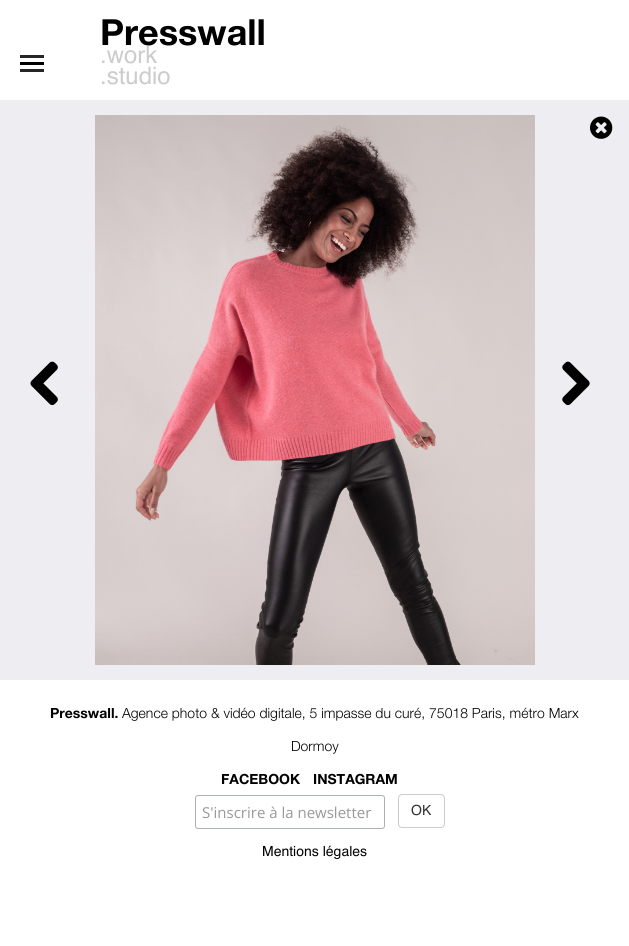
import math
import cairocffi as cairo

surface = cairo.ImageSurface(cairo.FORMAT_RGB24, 629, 946)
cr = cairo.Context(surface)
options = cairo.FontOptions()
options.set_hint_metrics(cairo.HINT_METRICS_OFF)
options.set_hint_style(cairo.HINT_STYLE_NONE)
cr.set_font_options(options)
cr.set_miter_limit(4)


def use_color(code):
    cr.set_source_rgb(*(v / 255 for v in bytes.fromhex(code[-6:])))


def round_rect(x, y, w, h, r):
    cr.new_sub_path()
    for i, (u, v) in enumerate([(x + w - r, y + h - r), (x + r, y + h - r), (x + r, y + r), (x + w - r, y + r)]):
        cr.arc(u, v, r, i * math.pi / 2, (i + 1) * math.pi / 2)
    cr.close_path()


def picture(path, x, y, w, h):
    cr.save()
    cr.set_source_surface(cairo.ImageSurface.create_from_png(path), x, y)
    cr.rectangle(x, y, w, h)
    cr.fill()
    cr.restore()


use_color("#ffffff")
cr.paint()
use_color("#000000")
cr.rectangle(20, 62, 24, 3)
cr.fill()
use_color("#262626")
cr.rectangle(20, 55, 24, 3)
cr.fill()
cr.rectangle(20, 69, 24, 3)
cr.fill()
cr.select_font_face("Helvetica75", cairo.FONT_SLANT_NORMAL, cairo.FONT_WEIGHT_BOLD)
cr.set_font_size(36)
use_color("#000000")
cr.move_to(100, 45)
cr.show_text("Presswall")
cr.select_font_face("Helvetica")
cr.set_font_size(24)
use_color("#cccccc")
cr.move_to(100, 63)
cr.show_text(".work")
cr.move_to(100, 84)
cr.show_text(".studio")
use_color("#eeedf2")
cr.rectangle(0, 100, 629, 580)
cr.fill()
picture("img1.png", 95, 115, 440, 550)
picture("img2.png", 30, 361, 28, 45)
picture("img3.png", 562, 361, 28, 45)
picture("img4.png", 590, 116, 23, 23)
cr.select_font_face("Helvetica75", cairo.FONT_SLANT_NORMAL, cairo.FONT_WEIGHT_BOLD)
cr.set_font_size(14)
use_color("#000000")
cr.move_to(50, 718)
cr.show_text("Presswall.")
cr.select_font_face("Helvetica Neue Light")
cr.move_to(122, 718)
cr.show_text("Agence photo & vidéo digitale, 5 impasse du curé, 75018 Paris, métro Marx")
cr.move_to(291, 751)
cr.show_text("Dormoy")
cr.select_font_face("Helvetica75", cairo.FONT_SLANT_NORMAL, cairo.FONT_WEIGHT_BOLD)
cr.move_to(221, 784)
cr.show_text("FACEBOOK")
cr.move_to(313, 784)
cr.show_text("INSTAGRAM")
round_rect(195.5, 795.5, 189, 33, 2.5)
use_color("#abb0b2")
cr.set_line_width(1)
cr.stroke()
cr.select_font_face("Open Sans")
cr.set_font_size(15)
use_color("#999999")
cr.move_to(202, 818)
cr.show_text("S'inscrire à la newsletter")
round_rect(398.5, 794.5, 46, 33, 3.5)
use_color("#cccccc")
cr.stroke()
cr.select_font_face("Helvetica")
cr.set_font_size(14)
use_color("#333333")
cr.move_to(411, 815)
cr.show_text("OK")
use_color("#000000")
cr.move_to(262, 856)
cr.show_text("Mentions légales")
surface.write_to_png("result.png")
